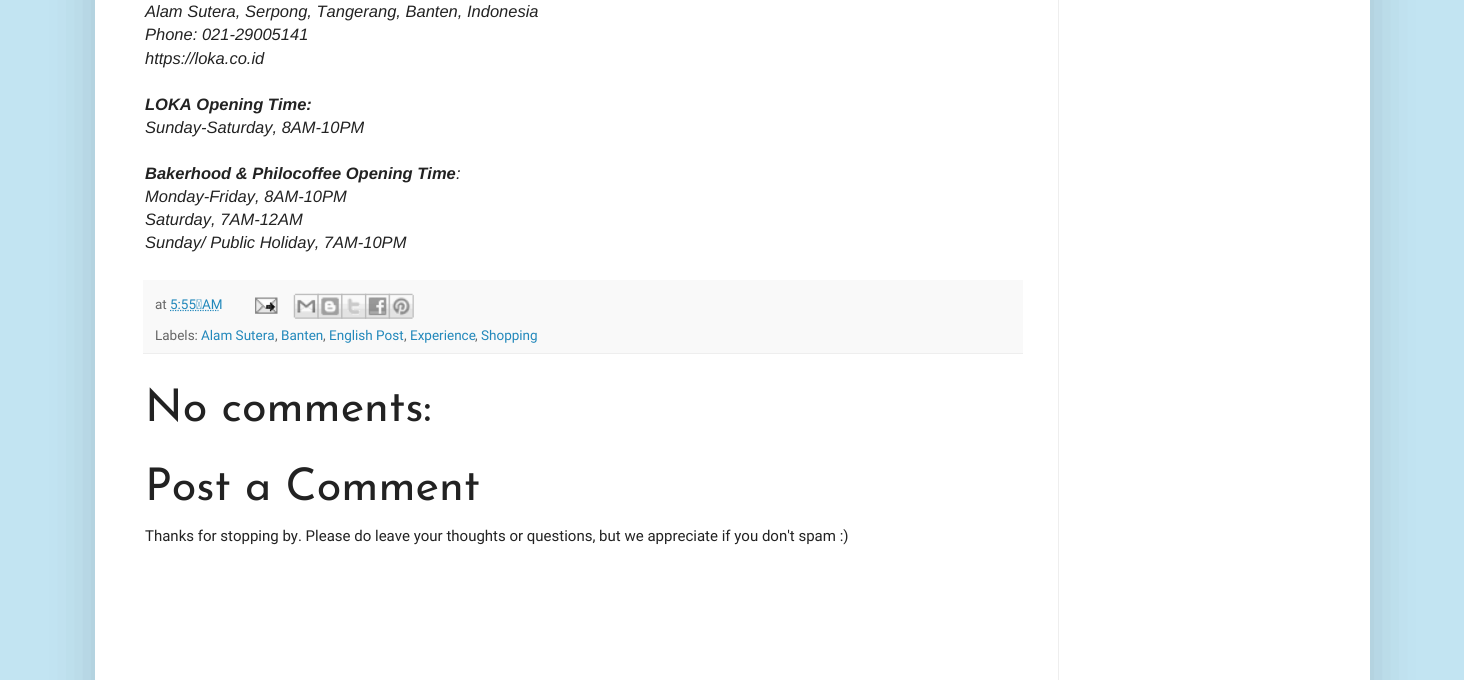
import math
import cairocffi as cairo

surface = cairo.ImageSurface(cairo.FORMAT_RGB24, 1464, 680)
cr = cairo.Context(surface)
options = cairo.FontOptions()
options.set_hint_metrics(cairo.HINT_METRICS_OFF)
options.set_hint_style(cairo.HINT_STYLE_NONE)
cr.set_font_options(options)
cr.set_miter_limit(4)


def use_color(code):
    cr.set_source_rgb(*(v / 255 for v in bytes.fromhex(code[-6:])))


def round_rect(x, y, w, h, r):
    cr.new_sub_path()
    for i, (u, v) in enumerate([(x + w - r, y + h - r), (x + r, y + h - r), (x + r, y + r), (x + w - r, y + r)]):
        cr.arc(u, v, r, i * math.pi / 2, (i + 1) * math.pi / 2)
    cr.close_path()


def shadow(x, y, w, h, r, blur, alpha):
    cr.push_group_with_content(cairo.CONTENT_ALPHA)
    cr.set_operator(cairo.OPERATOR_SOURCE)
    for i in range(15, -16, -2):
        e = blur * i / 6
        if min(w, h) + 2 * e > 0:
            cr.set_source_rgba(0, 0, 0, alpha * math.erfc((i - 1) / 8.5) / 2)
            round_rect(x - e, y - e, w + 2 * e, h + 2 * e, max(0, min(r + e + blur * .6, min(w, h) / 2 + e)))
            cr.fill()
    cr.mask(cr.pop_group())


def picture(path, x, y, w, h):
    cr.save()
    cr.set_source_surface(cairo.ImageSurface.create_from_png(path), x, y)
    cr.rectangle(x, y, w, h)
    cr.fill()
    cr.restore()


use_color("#c2e4f2")
cr.paint()
use_color("#000000")
shadow(95, -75, 1275, 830, 0, 25, 0.15)
use_color("#ffffff")
cr.rectangle(95, 0, 1275, 680)
cr.fill()
cr.select_font_face("Liberation Sans", cairo.FONT_SLANT_ITALIC)
cr.set_font_size(16.5)
use_color("#222222")
cr.move_to(145, 17)
cr.show_text("Alam Sutera, Serpong, Tangerang, Banten, Indonesia")
cr.move_to(145, 40)
cr.show_text("Phone: 021-29005141")
cr.move_to(145, 64)
cr.show_text("https://loka.co.id")
cr.select_font_face("Liberation Sans", cairo.FONT_SLANT_ITALIC, cairo.FONT_WEIGHT_BOLD)
cr.move_to(145, 110)
cr.show_text("LOKA Opening Time:")
cr.select_font_face("Liberation Sans", cairo.FONT_SLANT_ITALIC)
cr.move_to(145, 133)
cr.show_text("Sunday-Saturday, 8AM-10PM")
cr.select_font_face("Liberation Sans", cairo.FONT_SLANT_ITALIC, cairo.FONT_WEIGHT_BOLD)
cr.move_to(145, 179)
cr.show_text("Bakerhood & Philocoffee Opening Time")
cr.select_font_face("Liberation Sans", cairo.FONT_SLANT_ITALIC)
cr.move_to(456, 179)
cr.show_text(":")
cr.move_to(145, 202)
cr.show_text("Monday-Friday, 8AM-10PM")
cr.move_to(145, 225)
cr.show_text("Saturday, 7AM-12AM")
cr.move_to(145, 248)
cr.show_text("Sunday/ Public Holiday, 7AM-10PM")
use_color("#f9f9f9")
cr.rectangle(143, 280, 880, 73)
cr.fill()
use_color("#eeeeee")
cr.rectangle(143, 353, 880, 1)
cr.fill()
cr.select_font_face("Roboto")
cr.set_font_size(13.5)
use_color("#666666")
cr.move_to(155, 309)
cr.show_text("at")
cr.new_path()
cr.move_to(170, 310.5)
cr.line_to(218.5, 310.5)
use_color("#2288bb")
cr.set_line_width(1.2)
cr.set_dash([1.25, 1.25])
cr.stroke()
cr.move_to(170, 309)
cr.show_text("5:55 AM")
picture("img1.png", 255, 297, 23, 17)
picture("img2.png", 293, 293, 26, 26)
picture("img3.png", 317, 293, 26, 26)
picture("img4.png", 341, 293, 26, 26)
picture("img5.png", 365, 293, 25, 26)
picture("img6.png", 388, 293, 26, 26)
use_color("#666666")
cr.move_to(155, 340)
cr.show_text("Labels:")
use_color("#2288bb")
cr.move_to(201, 340)
cr.show_text("Alam Sutera")
use_color("#666666")
cr.move_to(275, 340)
cr.show_text(",")
use_color("#2288bb")
cr.move_to(281, 340)
cr.show_text("Banten")
use_color("#666666")
cr.move_to(323, 340)
cr.show_text(",")
use_color("#2288bb")
cr.move_to(329, 340)
cr.show_text("English Post")
use_color("#666666")
cr.move_to(404, 340)
cr.show_text(",")
use_color("#2288bb")
cr.move_to(410, 340)
cr.show_text("Experience")
use_color("#666666")
cr.move_to(475, 340)
cr.show_text(",")
use_color("#2288bb")
cr.move_to(481, 340)
cr.show_text("Shopping")
cr.select_font_face("Josefin Sans Thin")
cr.set_font_size(45)
use_color("#222222")
cr.move_to(145, 421)
cr.show_text("No comments:")
cr.move_to(145, 500)
cr.show_text("Post a Comment")
cr.select_font_face("Roboto")
cr.set_font_size(15)
cr.move_to(145, 541)
cr.show_text("Thanks for stopping by. Please do leave your thoughts or questions, but we appreciate if you don't spam :)")
use_color("#eeeeee")
cr.rectangle(1058, 0, 1, 680)
cr.fill()
surface.write_to_png("result.png")
